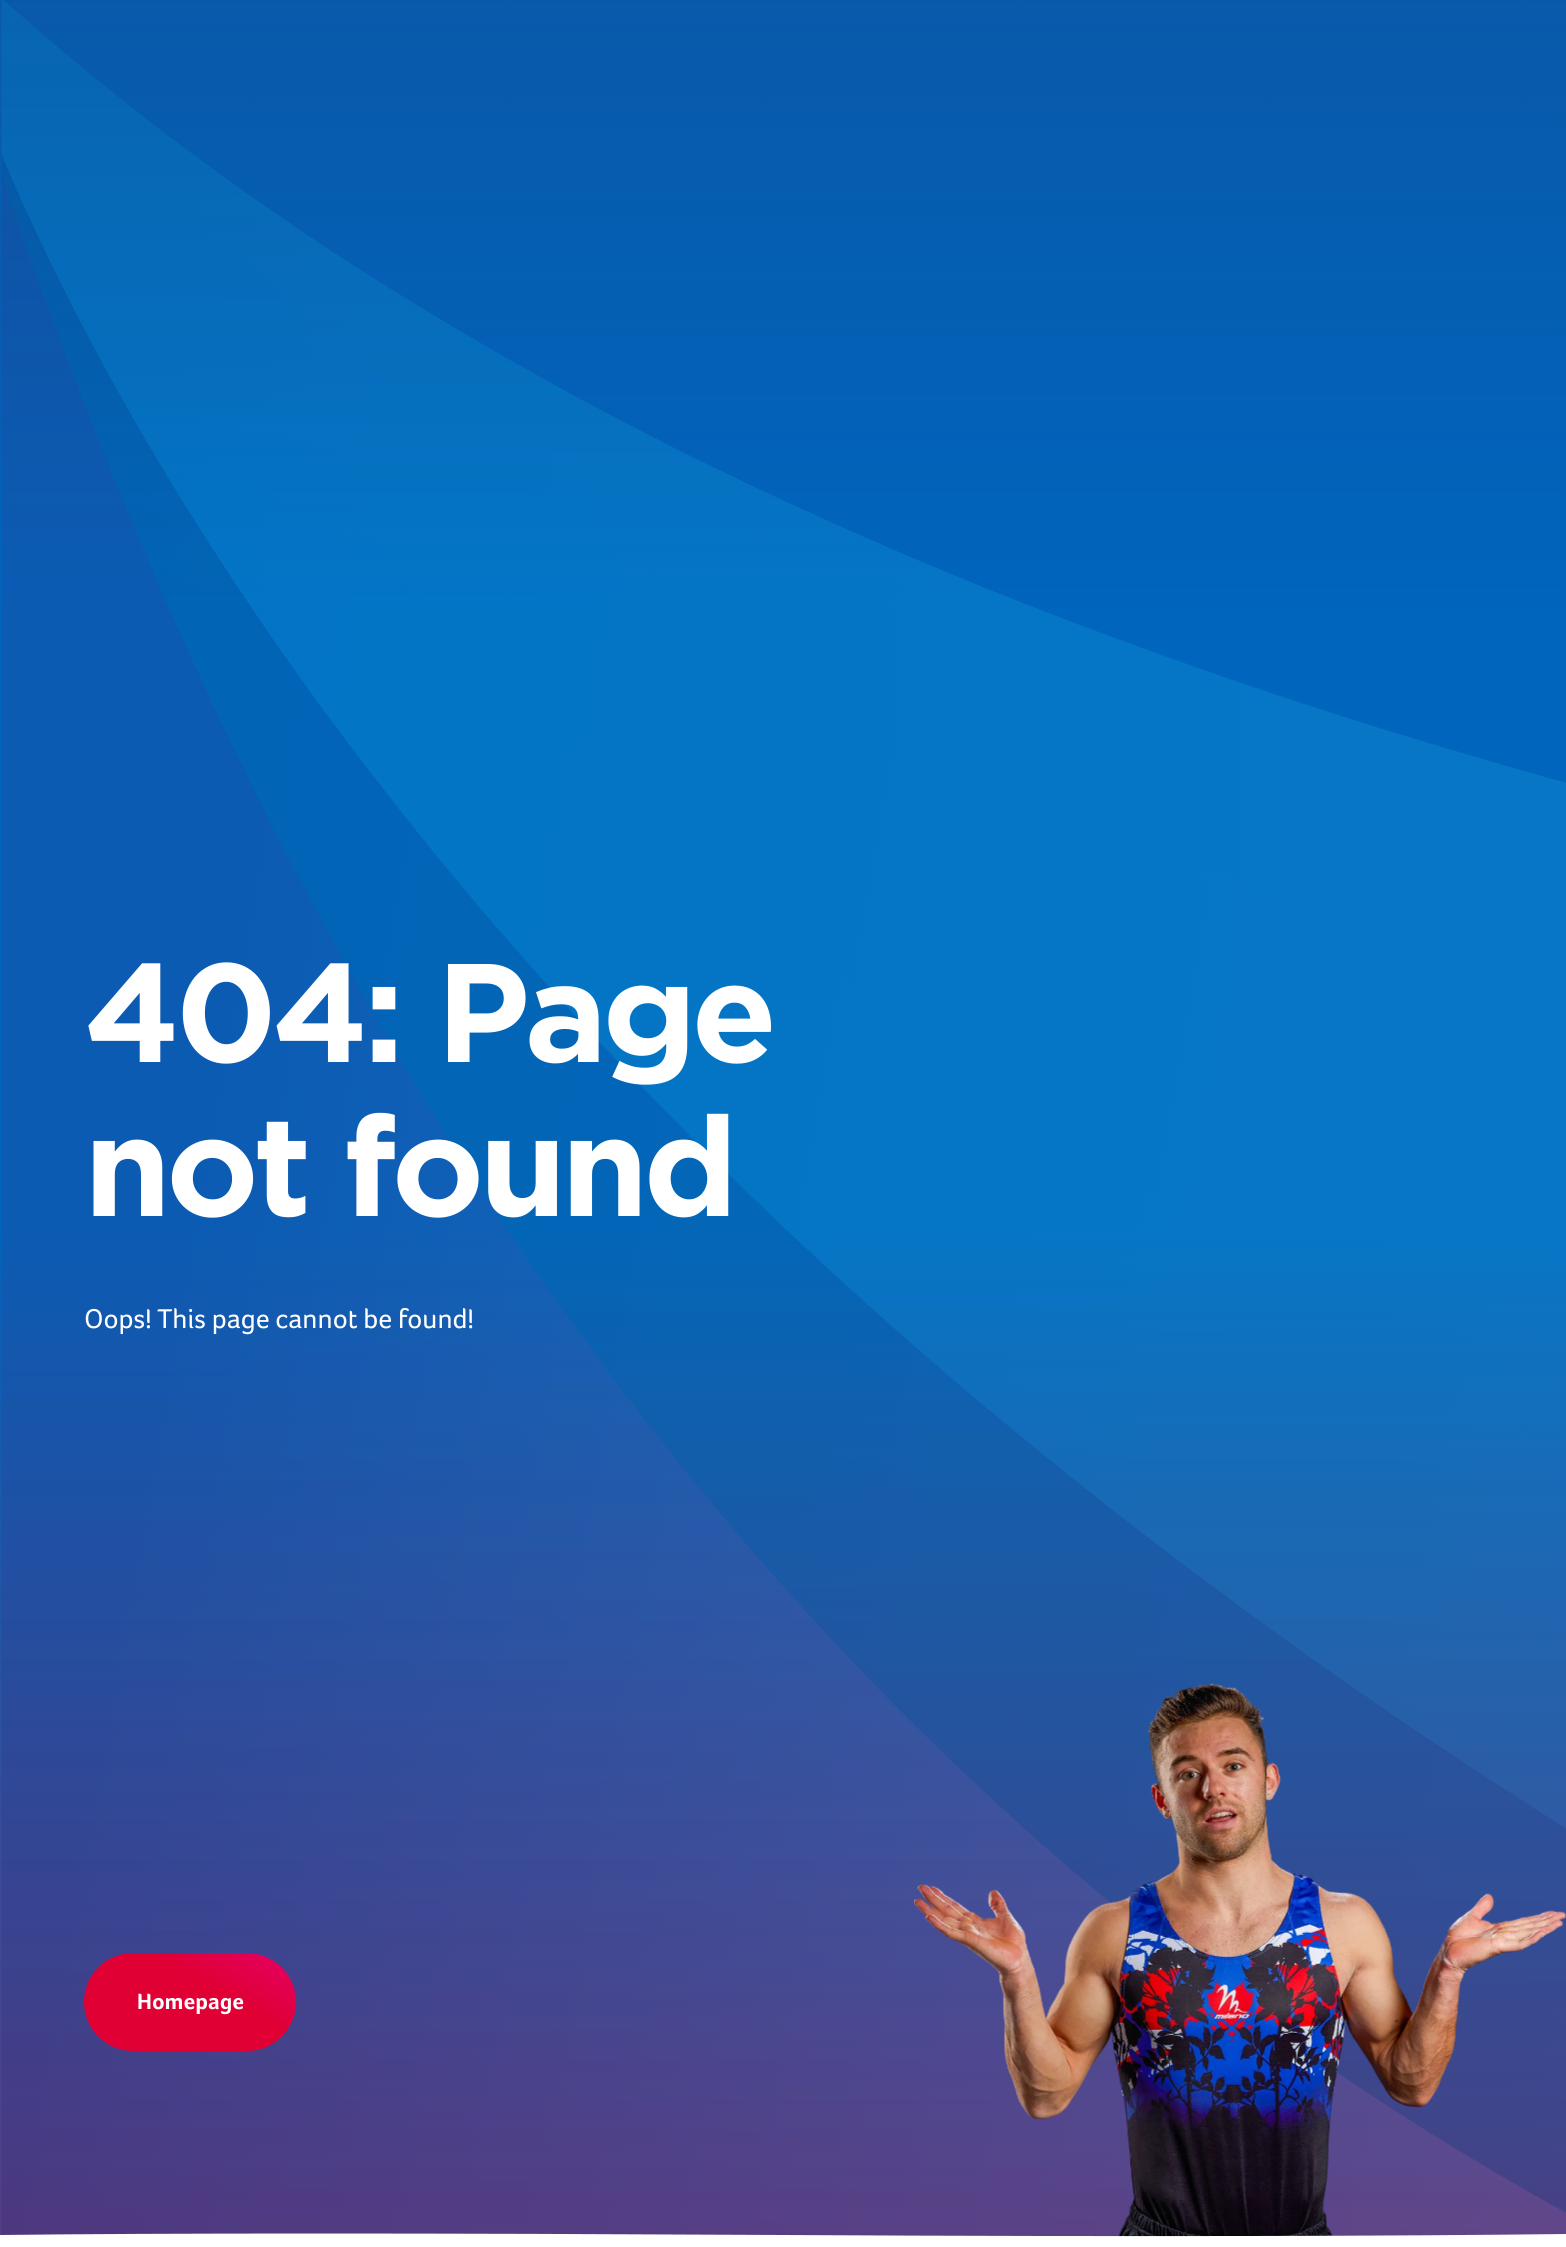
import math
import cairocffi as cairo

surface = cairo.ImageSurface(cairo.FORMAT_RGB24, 1566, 2247)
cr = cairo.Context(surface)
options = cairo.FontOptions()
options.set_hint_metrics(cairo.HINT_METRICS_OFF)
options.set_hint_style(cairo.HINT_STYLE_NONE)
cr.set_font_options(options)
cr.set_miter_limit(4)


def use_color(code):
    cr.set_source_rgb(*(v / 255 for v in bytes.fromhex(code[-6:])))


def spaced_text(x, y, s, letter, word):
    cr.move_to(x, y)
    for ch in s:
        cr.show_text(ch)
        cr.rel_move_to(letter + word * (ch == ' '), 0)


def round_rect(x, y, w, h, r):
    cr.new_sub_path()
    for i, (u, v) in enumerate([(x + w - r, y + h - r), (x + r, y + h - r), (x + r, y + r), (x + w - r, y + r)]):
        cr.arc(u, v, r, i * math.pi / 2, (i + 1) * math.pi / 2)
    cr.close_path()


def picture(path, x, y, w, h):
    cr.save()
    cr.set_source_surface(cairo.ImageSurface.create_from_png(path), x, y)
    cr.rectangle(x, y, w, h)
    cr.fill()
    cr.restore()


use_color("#ffffff")
cr.paint()
picture("img1.png", 0, 0, 1566, 2237)
cr.select_font_face("Gotham", cairo.FONT_SLANT_NORMAL, cairo.FONT_WEIGHT_BOLD)
cr.set_font_size(140)
use_color("#ffffff")
spaced_text(84, 1062, "404: Page", -5.25, 0)
spaced_text(84, 1216, "not found", -5.25, 0)
cr.select_font_face("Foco")
cr.set_font_size(28)
cr.move_to(84, 1328)
cr.show_text("Oops! This page cannot be found!")
gradient = cairo.LinearGradient(238, 1919, 142, 2085)
gradient.add_color_stop_rgba(0, 0.898, 0, 0.4, 1)
gradient.add_color_stop_rgba(0.38, 0.878, 0, 0.204, 1)
cr.set_source(gradient)
round_rect(84, 1953, 212, 98, 49)
cr.fill()
cr.select_font_face("Foco", cairo.FONT_SLANT_NORMAL, cairo.FONT_WEIGHT_BOLD)
cr.set_font_size(22.75)
use_color("#ffffff")
cr.move_to(137, 2009)
cr.show_text("Homepage")
picture("img2.png", 914, 1683, 652, 554)
cr.new_path()
cr.move_to(0, 2235)
cr.curve_to(163, 2233, 424, 2233, 783, 2235)
cr.curve_to(1142, 2237, 1403, 2236, 1566, 2234)
cr.line_to(1566, 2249)
cr.line_to(0, 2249)
cr.close_path()
cr.fill()
surface.write_to_png("result.png")
